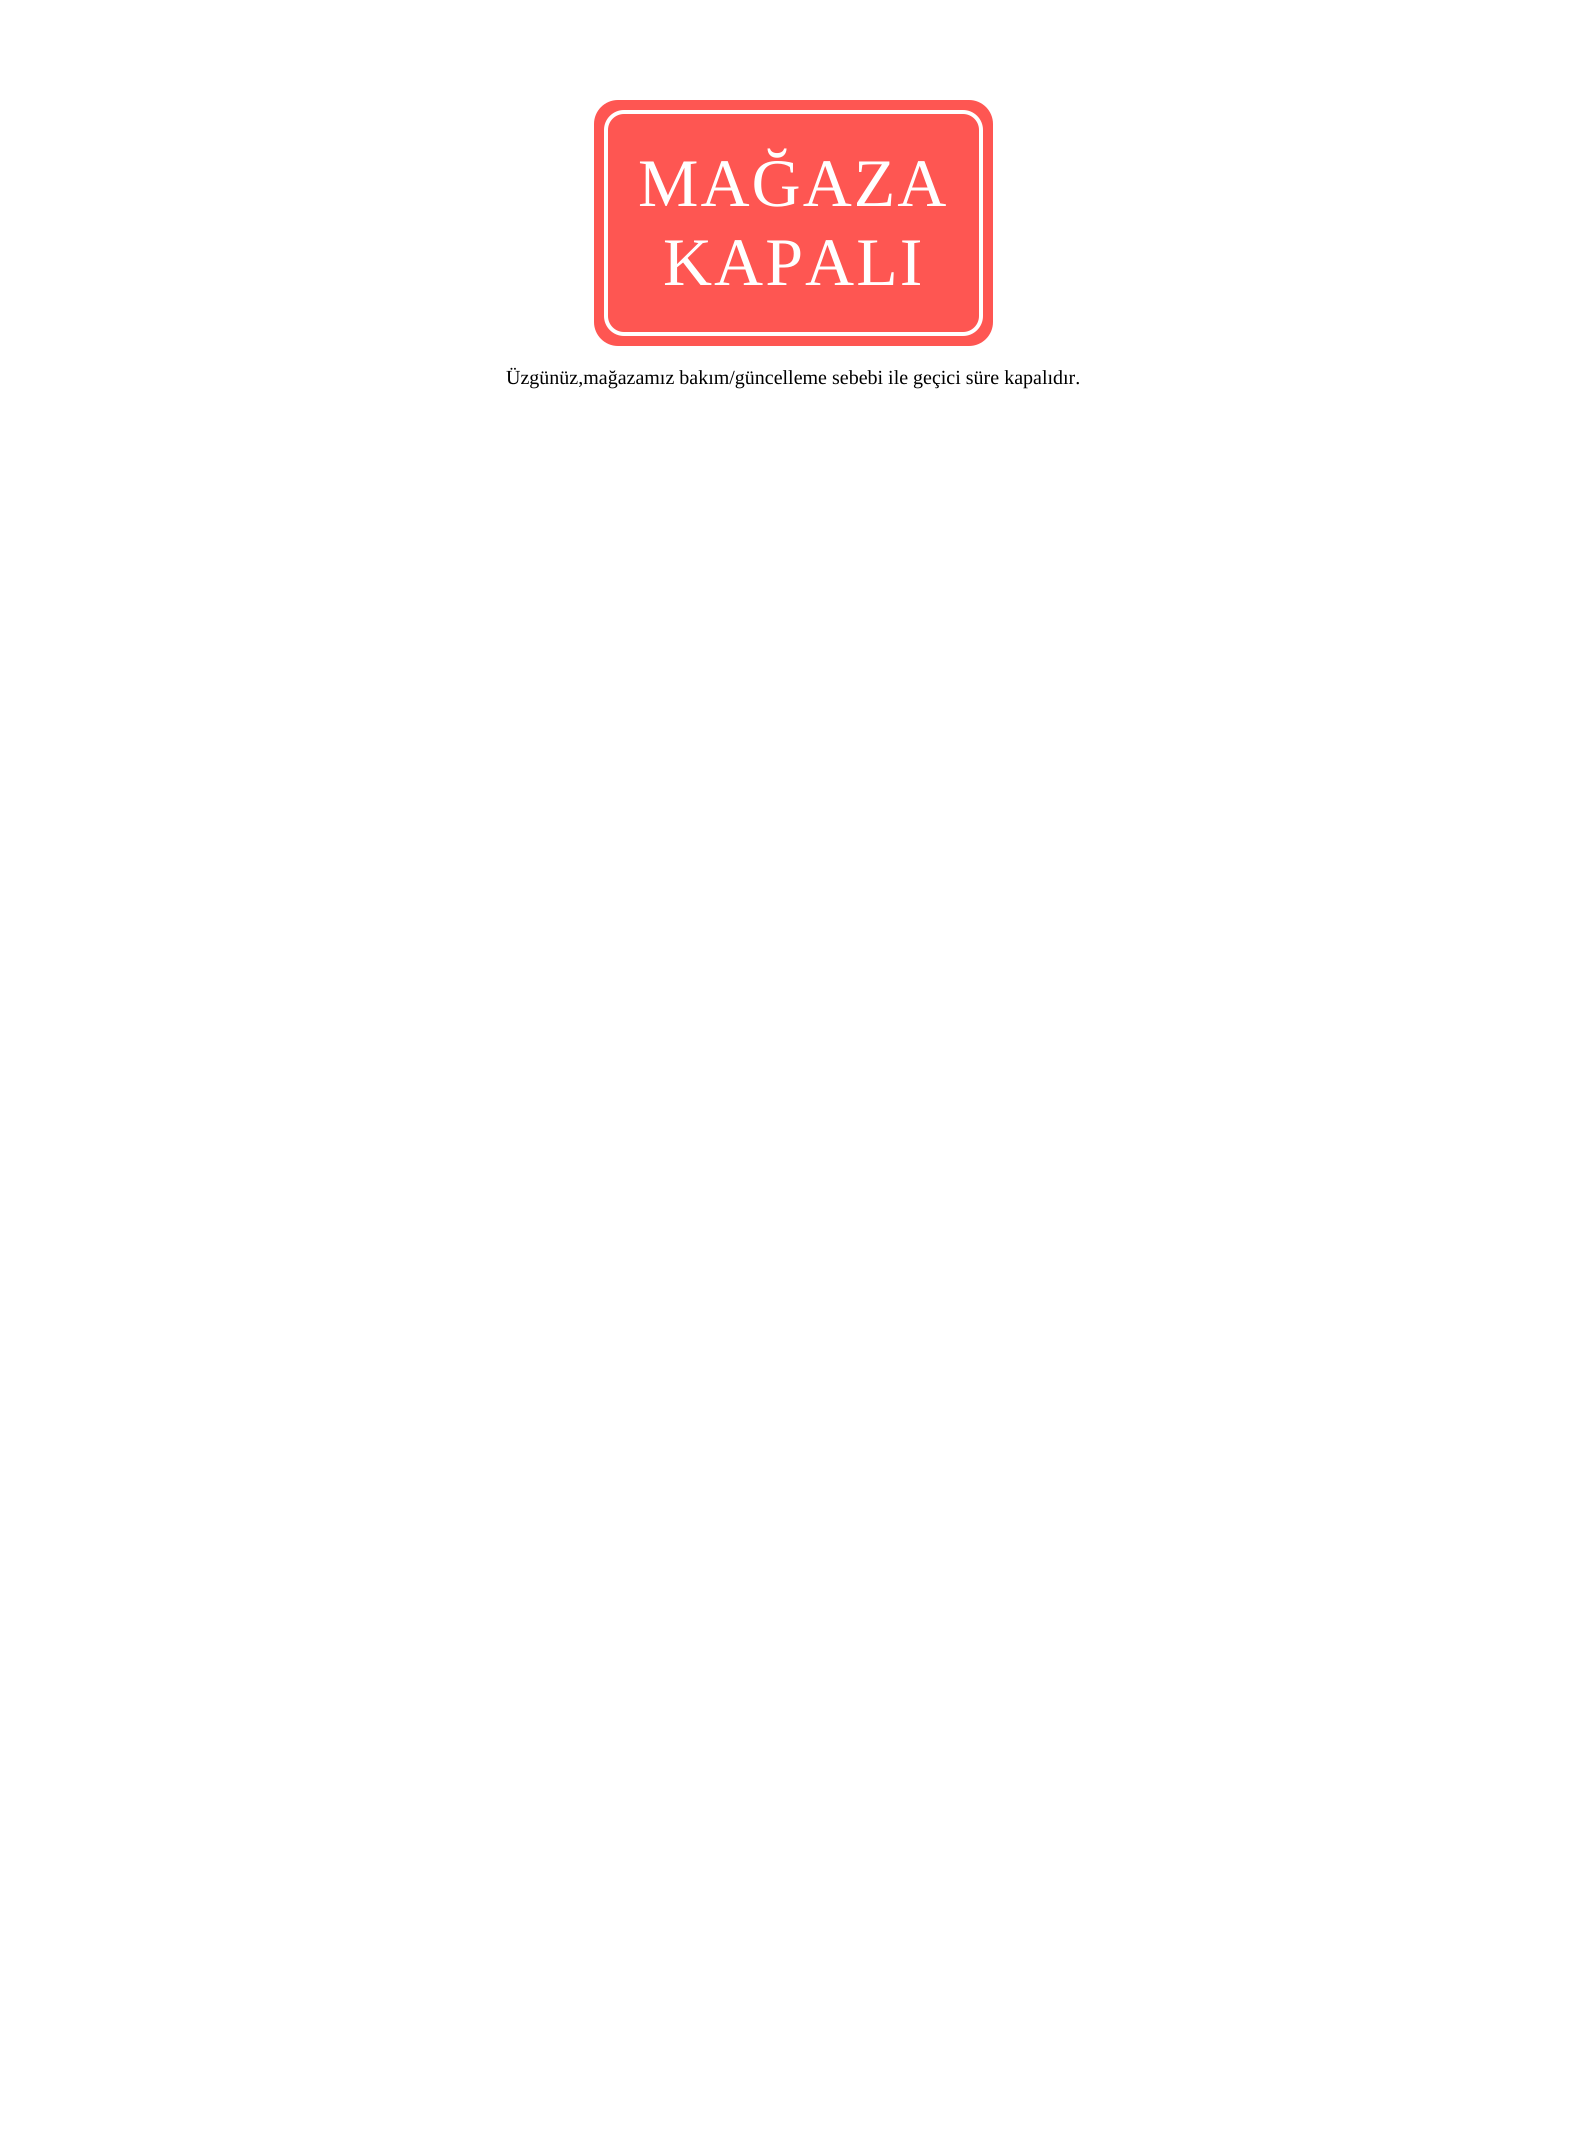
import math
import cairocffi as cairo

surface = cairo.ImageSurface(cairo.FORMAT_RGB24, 1587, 2145)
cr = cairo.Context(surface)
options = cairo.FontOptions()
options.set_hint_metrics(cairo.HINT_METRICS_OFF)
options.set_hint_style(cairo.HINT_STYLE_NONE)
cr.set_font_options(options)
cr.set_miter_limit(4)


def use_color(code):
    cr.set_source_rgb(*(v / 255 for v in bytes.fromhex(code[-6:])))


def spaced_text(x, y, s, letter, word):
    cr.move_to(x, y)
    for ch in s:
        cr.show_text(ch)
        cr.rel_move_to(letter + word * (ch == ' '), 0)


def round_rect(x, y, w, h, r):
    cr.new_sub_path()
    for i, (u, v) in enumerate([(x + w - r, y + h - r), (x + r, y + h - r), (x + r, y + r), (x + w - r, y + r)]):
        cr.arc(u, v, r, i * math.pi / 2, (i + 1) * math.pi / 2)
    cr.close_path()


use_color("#ffffff")
cr.paint()
use_color("#fe5652")
round_rect(594, 100, 399, 246, 24)
cr.fill()
round_rect(606, 112, 375, 222, 18)
use_color("#ffffff")
cr.set_line_width(4)
cr.stroke()
cr.select_font_face("Liberation Serif")
cr.set_font_size(68)
spaced_text(638, 206, "MAĞAZA", 2, 0)
spaced_text(663, 285, "KAPALI", 2, 0)
cr.set_font_size(20)
use_color("#000000")
cr.move_to(506, 384)
cr.show_text("Üzgünüz,mağazamız bakım/güncelleme sebebi ile geçici süre kapalıdır.")
surface.write_to_png("result.png")
